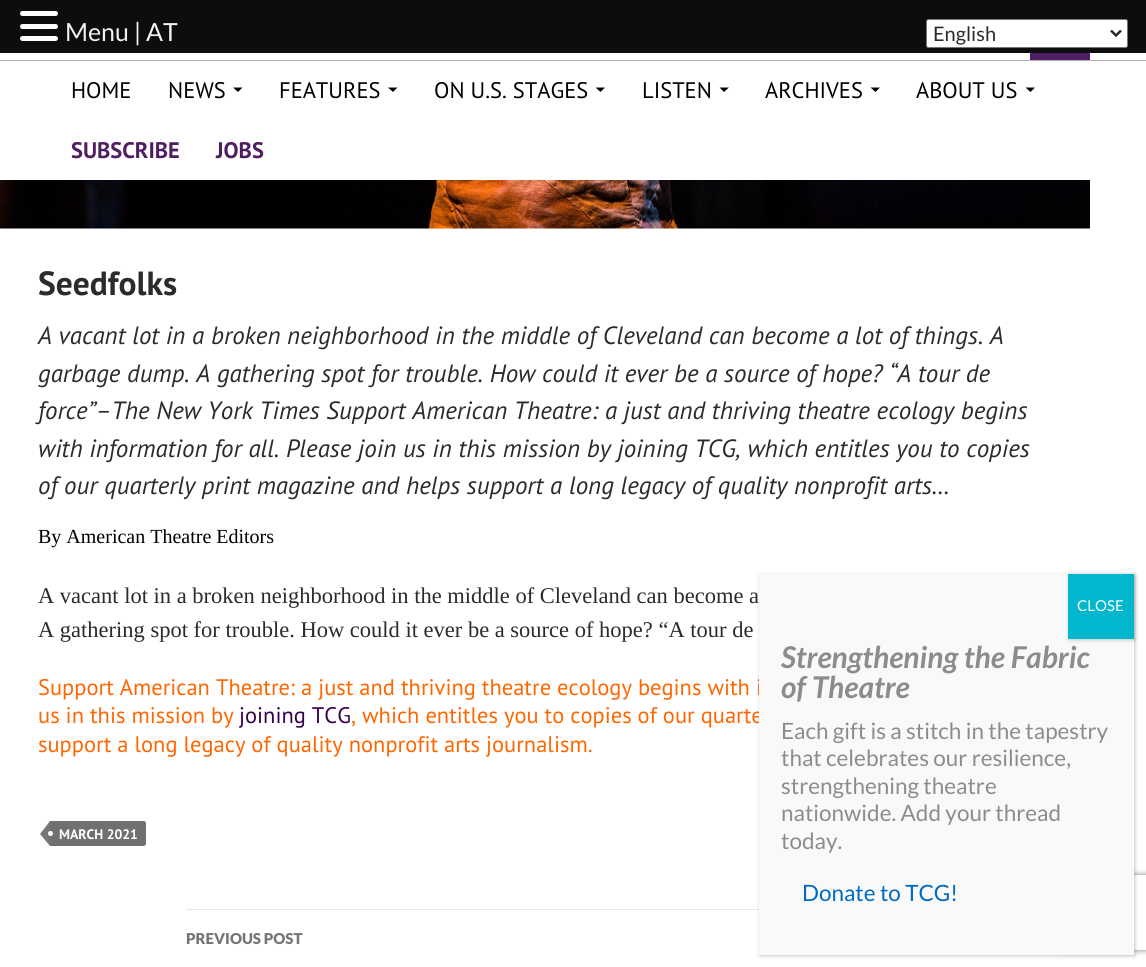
import math
import cairocffi as cairo

surface = cairo.ImageSurface(cairo.FORMAT_RGB24, 1146, 967)
cr = cairo.Context(surface)
options = cairo.FontOptions()
options.set_hint_metrics(cairo.HINT_METRICS_OFF)
options.set_hint_style(cairo.HINT_STYLE_NONE)
cr.set_font_options(options)
cr.set_miter_limit(4)


def use_color(code):
    cr.set_source_rgb(*(v / 255 for v in bytes.fromhex(code[-6:])))


def round_rect(x, y, w, h, r):
    cr.new_sub_path()
    for i, (u, v) in enumerate([(x + w - r, y + h - r), (x + r, y + h - r), (x + r, y + r), (x + w - r, y + r)]):
        cr.arc(u, v, r, i * math.pi / 2, (i + 1) * math.pi / 2)
    cr.close_path()


def shadow(x, y, w, h, r, blur, alpha):
    cr.push_group_with_content(cairo.CONTENT_ALPHA)
    cr.set_operator(cairo.OPERATOR_SOURCE)
    for i in range(15, -16, -2):
        e = blur * i / 6
        if min(w, h) + 2 * e > 0:
            cr.set_source_rgba(0, 0, 0, alpha * math.erfc((i - 1) / 8.5) / 2)
            round_rect(x - e, y - e, w + 2 * e, h + 2 * e, max(0, min(r + e + blur * .6, min(w, h) / 2 + e)))
            cr.fill()
    cr.mask(cr.pop_group())


def picture(path, x, y, w, h):
    cr.save()
    cr.set_source_surface(cairo.ImageSurface.create_from_png(path), x, y)
    cr.rectangle(x, y, w, h)
    cr.fill()
    cr.restore()


use_color("#ffffff")
cr.paint()
use_color("#0d0d0d")
cr.rectangle(0, 0, 1146, 53)
cr.fill()
use_color("#ffffff")
round_rect(20, 11, 38, 5, 2.5)
cr.fill()
round_rect(20, 24, 38, 5, 2.5)
cr.fill()
round_rect(20, 36, 38, 5, 2.5)
cr.fill()
cr.select_font_face("Lato")
cr.set_font_size(25)
use_color("#f2f2f2")
cr.move_to(65, 41)
cr.show_text("Menu | AT")
use_color("#ffffff")
round_rect(926.5, 19.5, 201, 28, 2)
cr.fill_preserve()
use_color("#767676")
cr.set_line_width(1)
cr.stroke()
cr.new_path()
cr.move_to(1111, 30.5)
cr.line_to(1116, 35.5)
cr.line_to(1121, 30.5)
use_color("#2b2b2b")
cr.set_line_width(2.5)
cr.stroke()
cr.set_font_size(20)
cr.move_to(933, 41)
cr.show_text("English")
use_color("#afafaf")
cr.rectangle(0, 60, 1146, 1)
cr.fill()
use_color("#501e62")
cr.rectangle(1030, 53, 60, 7)
cr.fill()
cr.select_font_face("PT Sans")
cr.set_font_size(22.5)
use_color("#000000")
cr.move_to(71, 98)
cr.show_text("HOME")
cr.move_to(168, 98)
cr.show_text("NEWS")
cr.new_path()
cr.move_to(233, 87.5)
cr.line_to(242.5, 87.5)
cr.line_to(238, 92)
cr.close_path()
cr.fill()
cr.move_to(279, 98)
cr.show_text("FEATURES")
cr.new_path()
cr.move_to(388, 87.5)
cr.line_to(397.5, 87.5)
cr.line_to(393, 92)
cr.close_path()
cr.fill()
cr.move_to(434, 98)
cr.show_text("ON U.S. STAGES")
cr.new_path()
cr.move_to(595.5, 87.5)
cr.line_to(605, 87.5)
cr.line_to(600.5, 92)
cr.close_path()
cr.fill()
cr.move_to(642, 98)
cr.show_text("LISTEN")
cr.new_path()
cr.move_to(719.5, 87.5)
cr.line_to(729, 87.5)
cr.line_to(724, 92)
cr.close_path()
cr.fill()
cr.move_to(765, 98)
cr.show_text("ARCHIVES")
cr.new_path()
cr.move_to(870.5, 87.5)
cr.line_to(880, 87.5)
cr.line_to(875.5, 92)
cr.close_path()
cr.fill()
cr.move_to(916, 98)
cr.show_text("ABOUT US")
cr.new_path()
cr.move_to(1025.5, 87.5)
cr.line_to(1035, 87.5)
cr.line_to(1030.5, 92)
cr.close_path()
cr.fill()
cr.select_font_face("PT Sans", cairo.FONT_SLANT_NORMAL, cairo.FONT_WEIGHT_BOLD)
use_color("#501e62")
cr.move_to(71, 158)
cr.show_text("SUBSCRIBE")
cr.move_to(216, 158)
cr.show_text("JOBS")
picture("img1.png", 0, 180, 1090, 49)
cr.set_font_size(33.5)
use_color("#2b2b2b")
cr.move_to(38, 295)
cr.show_text("Seedfolks")
cr.select_font_face("PT Sans", cairo.FONT_SLANT_ITALIC)
cr.set_font_size(25)
cr.move_to(38, 344)
cr.show_text("A vacant lot in a broken neighborhood in the middle of Cleveland can become a lot of things. A")
cr.move_to(38, 382)
cr.show_text("garbage dump. A gathering spot for trouble. How could it ever be a source of hope? “A tour de")
cr.move_to(38, 419)
cr.show_text("force”–The New York Times Support American Theatre: a just and thriving theatre ecology begins")
cr.move_to(38, 457)
cr.show_text("with information for all. Please join us in this mission by joining TCG, which entitles you to copies")
cr.move_to(38, 494)
cr.show_text("of our quarterly print magazine and helps support a long legacy of quality nonprofit arts…")
cr.select_font_face("Liberation Serif")
cr.set_font_size(20)
use_color("#000000")
cr.move_to(38, 543)
cr.show_text("By American Theatre Editors")
cr.set_font_size(22.5)
use_color("#2b2b2b")
cr.move_to(38, 603)
cr.show_text("A vacant lot in a broken neighborhood in the middle of Cleveland can become a")
cr.move_to(38, 637)
cr.show_text("A gathering spot for trouble. How could it ever be a source of hope? “A tour de")
cr.select_font_face("PT Sans")
use_color("#ff6600")
cr.move_to(38, 695)
cr.show_text("Support American Theatre: a just and thriving theatre ecology begins with i")
cr.move_to(38, 723)
cr.show_text("us in this mission by")
use_color("#39004c")
cr.move_to(239, 723)
cr.show_text("joining TCG")
use_color("#ff6600")
cr.move_to(351, 723)
cr.show_text(", which entitles you to copies of our quarte")
cr.move_to(38, 752)
cr.show_text("support a long legacy of quality nonprofit arts journalism.")
use_color("#707070")
cr.new_path()
cr.move_to(50, 821)
cr.line_to(143.5, 821)
cr.curve_to(145, 821, 146, 822, 146, 823.5)
cr.line_to(146, 843.5)
cr.curve_to(146, 845, 145, 846, 143.5, 846)
cr.line_to(50, 846)
cr.close_path()
cr.fill()
use_color("#767676")
cr.new_path()
cr.move_to(50, 821)
cr.line_to(50, 846)
cr.line_to(40, 834)
cr.close_path()
cr.fill()
use_color("#ffffff")
cr.arc(50.5, 833.5, 2.5, 0, 2 * math.pi)
cr.fill()
cr.select_font_face("PT Sans", cairo.FONT_SLANT_NORMAL, cairo.FONT_WEIGHT_BOLD)
cr.set_font_size(13.75)
cr.move_to(59, 839)
cr.show_text("MARCH 2021")
use_color("#e6e6e6")
cr.rectangle(186, 909, 573, 1)
cr.fill()
cr.select_font_face("Lato Black")
cr.set_font_size(15)
use_color("#767676")
cr.move_to(186, 944)
cr.show_text("PREVIOUS POST")
use_color("#020202")
shadow(760, 575, 375, 381, 0, 2, 0.23)
cr.save()
cr.set_fill_rule(cairo.FILL_RULE_EVEN_ODD)
cr.new_path()
cr.move_to(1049, 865)
cr.line_to(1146, 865)
cr.line_to(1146, 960)
cr.line_to(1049, 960)
cr.close_path()
cr.move_to(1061.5, 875)
cr.line_to(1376.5, 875)
cr.curve_to(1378, 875, 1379, 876, 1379, 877.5)
cr.line_to(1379, 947.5)
cr.curve_to(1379, 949, 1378, 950, 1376.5, 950)
cr.line_to(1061.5, 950)
cr.curve_to(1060, 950, 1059, 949, 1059, 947.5)
cr.line_to(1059, 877.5)
cr.curve_to(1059, 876, 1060, 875, 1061.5, 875)
cr.close_path()
cr.clip()
use_color("#808080")
shadow(1059, 875, 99, 75, 2.5, 3, 1)
cr.restore()
use_color("#f9f9f9")
cr.rectangle(759, 574, 375, 381)
cr.fill()
use_color("#020202")
shadow(1069, 575, 66, 65, 0, 2, 0.23)
use_color("#00b7cd")
cr.rectangle(1068, 574, 66, 65)
cr.fill()
cr.select_font_face("Lato")
use_color("#ffffff")
cr.move_to(1077, 611)
cr.show_text("CLOSE")
cr.select_font_face("Lato", cairo.FONT_SLANT_ITALIC, cairo.FONT_WEIGHT_BOLD)
cr.set_font_size(30)
use_color("#8c8c8c")
cr.move_to(781, 668)
cr.show_text("Strengthening the Fabric")
cr.move_to(781, 698)
cr.show_text("of Theatre")
cr.select_font_face("Lato")
cr.set_font_size(22.5)
cr.move_to(781, 739)
cr.show_text("Each gift is a stitch in the tapestry")
cr.move_to(781, 766)
cr.show_text("that celebrates our resilience,")
cr.move_to(781, 794)
cr.show_text("strengthening theatre")
cr.move_to(781, 821)
cr.show_text("nationwide. Add your thread")
cr.move_to(781, 849)
cr.show_text("today.")
use_color("#0069c2")
cr.move_to(802, 901)
cr.show_text("Donate to TCG!")
surface.write_to_png("result.png")
